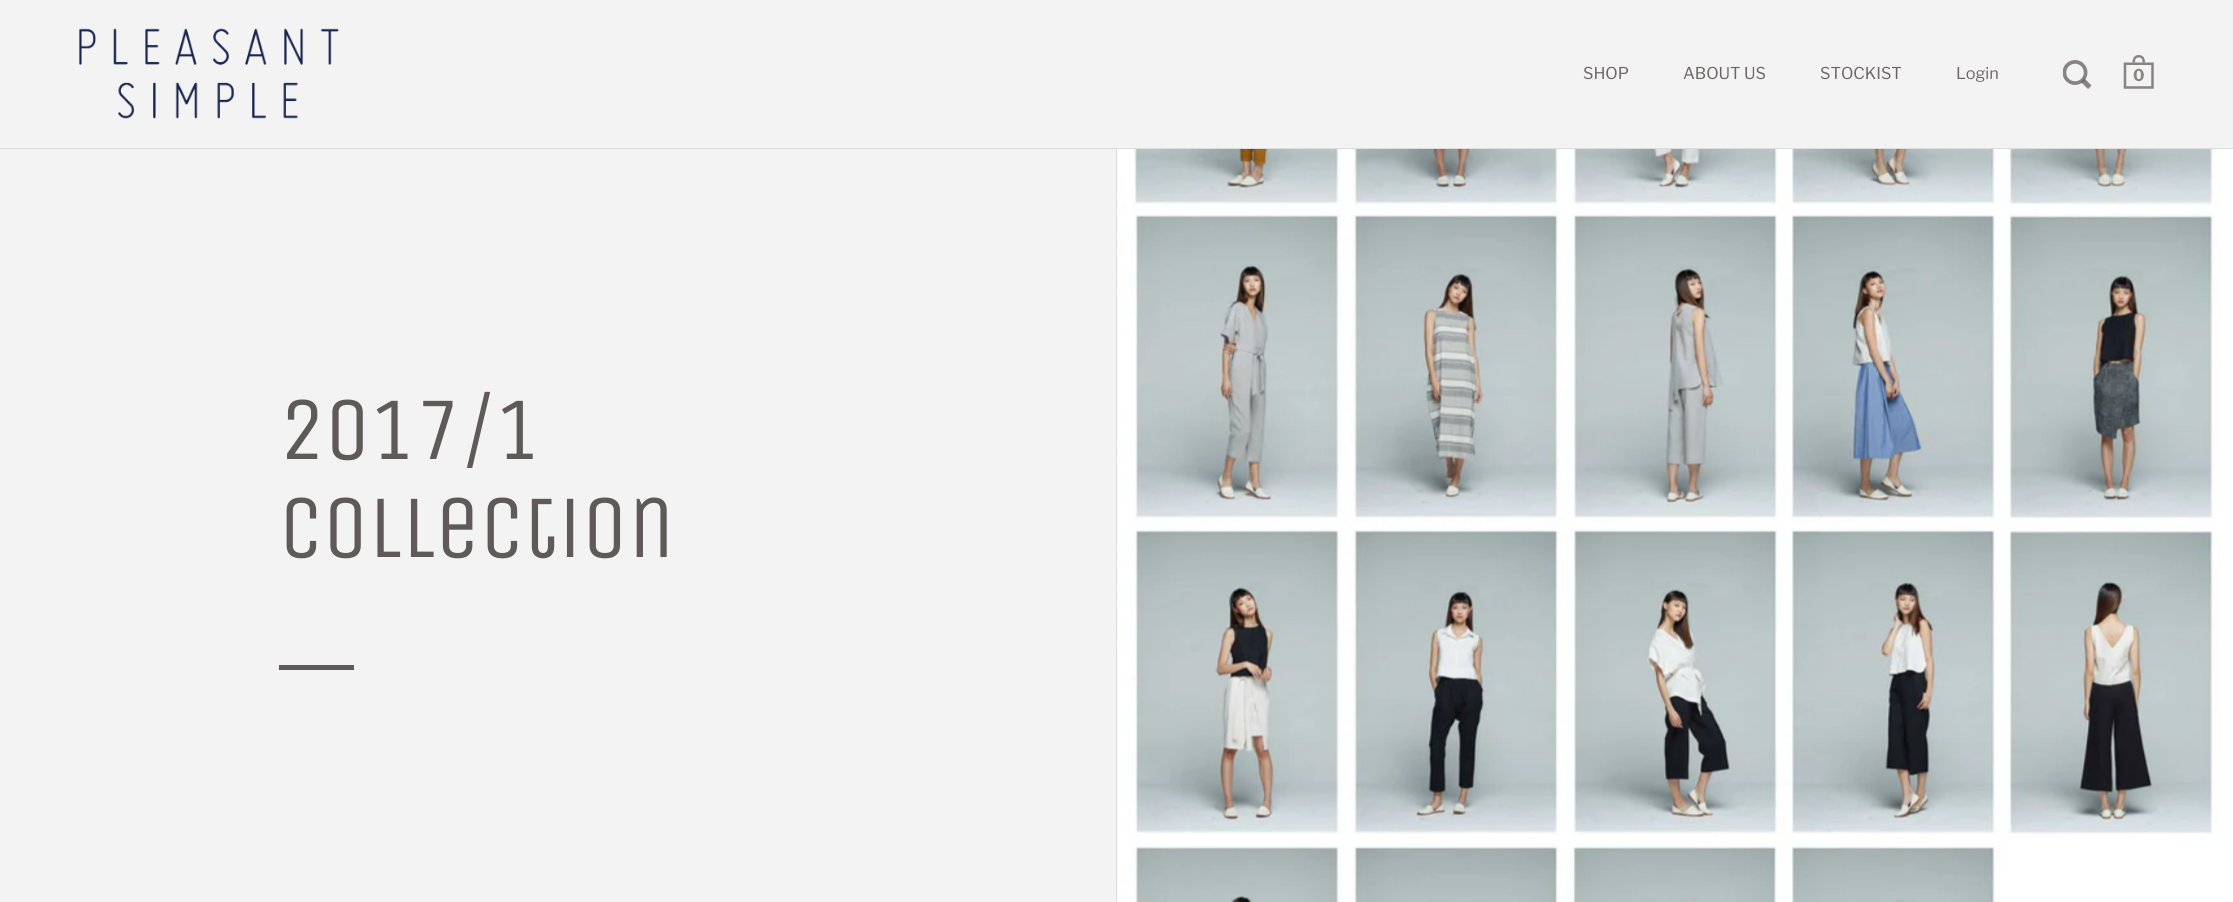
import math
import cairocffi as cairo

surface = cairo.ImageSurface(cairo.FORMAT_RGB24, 2233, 902)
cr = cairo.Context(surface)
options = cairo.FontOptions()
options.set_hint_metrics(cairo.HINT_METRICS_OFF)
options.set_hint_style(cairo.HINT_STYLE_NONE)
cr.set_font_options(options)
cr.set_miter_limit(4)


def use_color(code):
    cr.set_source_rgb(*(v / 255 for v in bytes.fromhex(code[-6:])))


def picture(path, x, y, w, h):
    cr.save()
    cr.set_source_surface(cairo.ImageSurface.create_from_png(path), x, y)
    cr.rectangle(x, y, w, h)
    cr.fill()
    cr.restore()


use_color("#f3f3f3")
cr.paint()
use_color("#dcdcdc")
cr.rectangle(1116, 148, 1, 754)
cr.fill()
cr.new_path()
cr.move_to(0, 148)
cr.line_to(0, 149)
cr.line_to(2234, 149)
cr.line_to(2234, 1)
cr.line_to(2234, 148)
cr.close_path()
cr.fill()
picture("img1.png", 79, 28, 260, 91)
cr.select_font_face("Libre Franklin")
cr.set_font_size(16.25)
use_color("#6b6565")
cr.move_to(1583, 79)
cr.show_text("SHOP")
cr.move_to(1683, 79)
cr.show_text("ABOUT US")
cr.move_to(1820, 79)
cr.show_text("STOCKIST")
cr.move_to(1956, 79)
cr.show_text("Login")
picture("img2.png", 2063, 60, 29, 29)
picture("img3.png", 2123, 55, 31, 34)
cr.select_font_face("Libre Franklin", cairo.FONT_SLANT_NORMAL, cairo.FONT_WEIGHT_BOLD)
use_color("#888484")
cr.move_to(2133, 81)
cr.show_text("0")
cr.select_font_face("Unica One")
cr.set_font_size(89.5)
use_color("#5f5959")
cr.move_to(279, 459)
cr.show_text("2017/1")
cr.move_to(279, 557)
cr.show_text("Collection")
cr.rectangle(279, 665, 75, 5)
cr.fill()
picture("img4.png", 1117, 149, 1116, 753)
surface.write_to_png("result.png")
